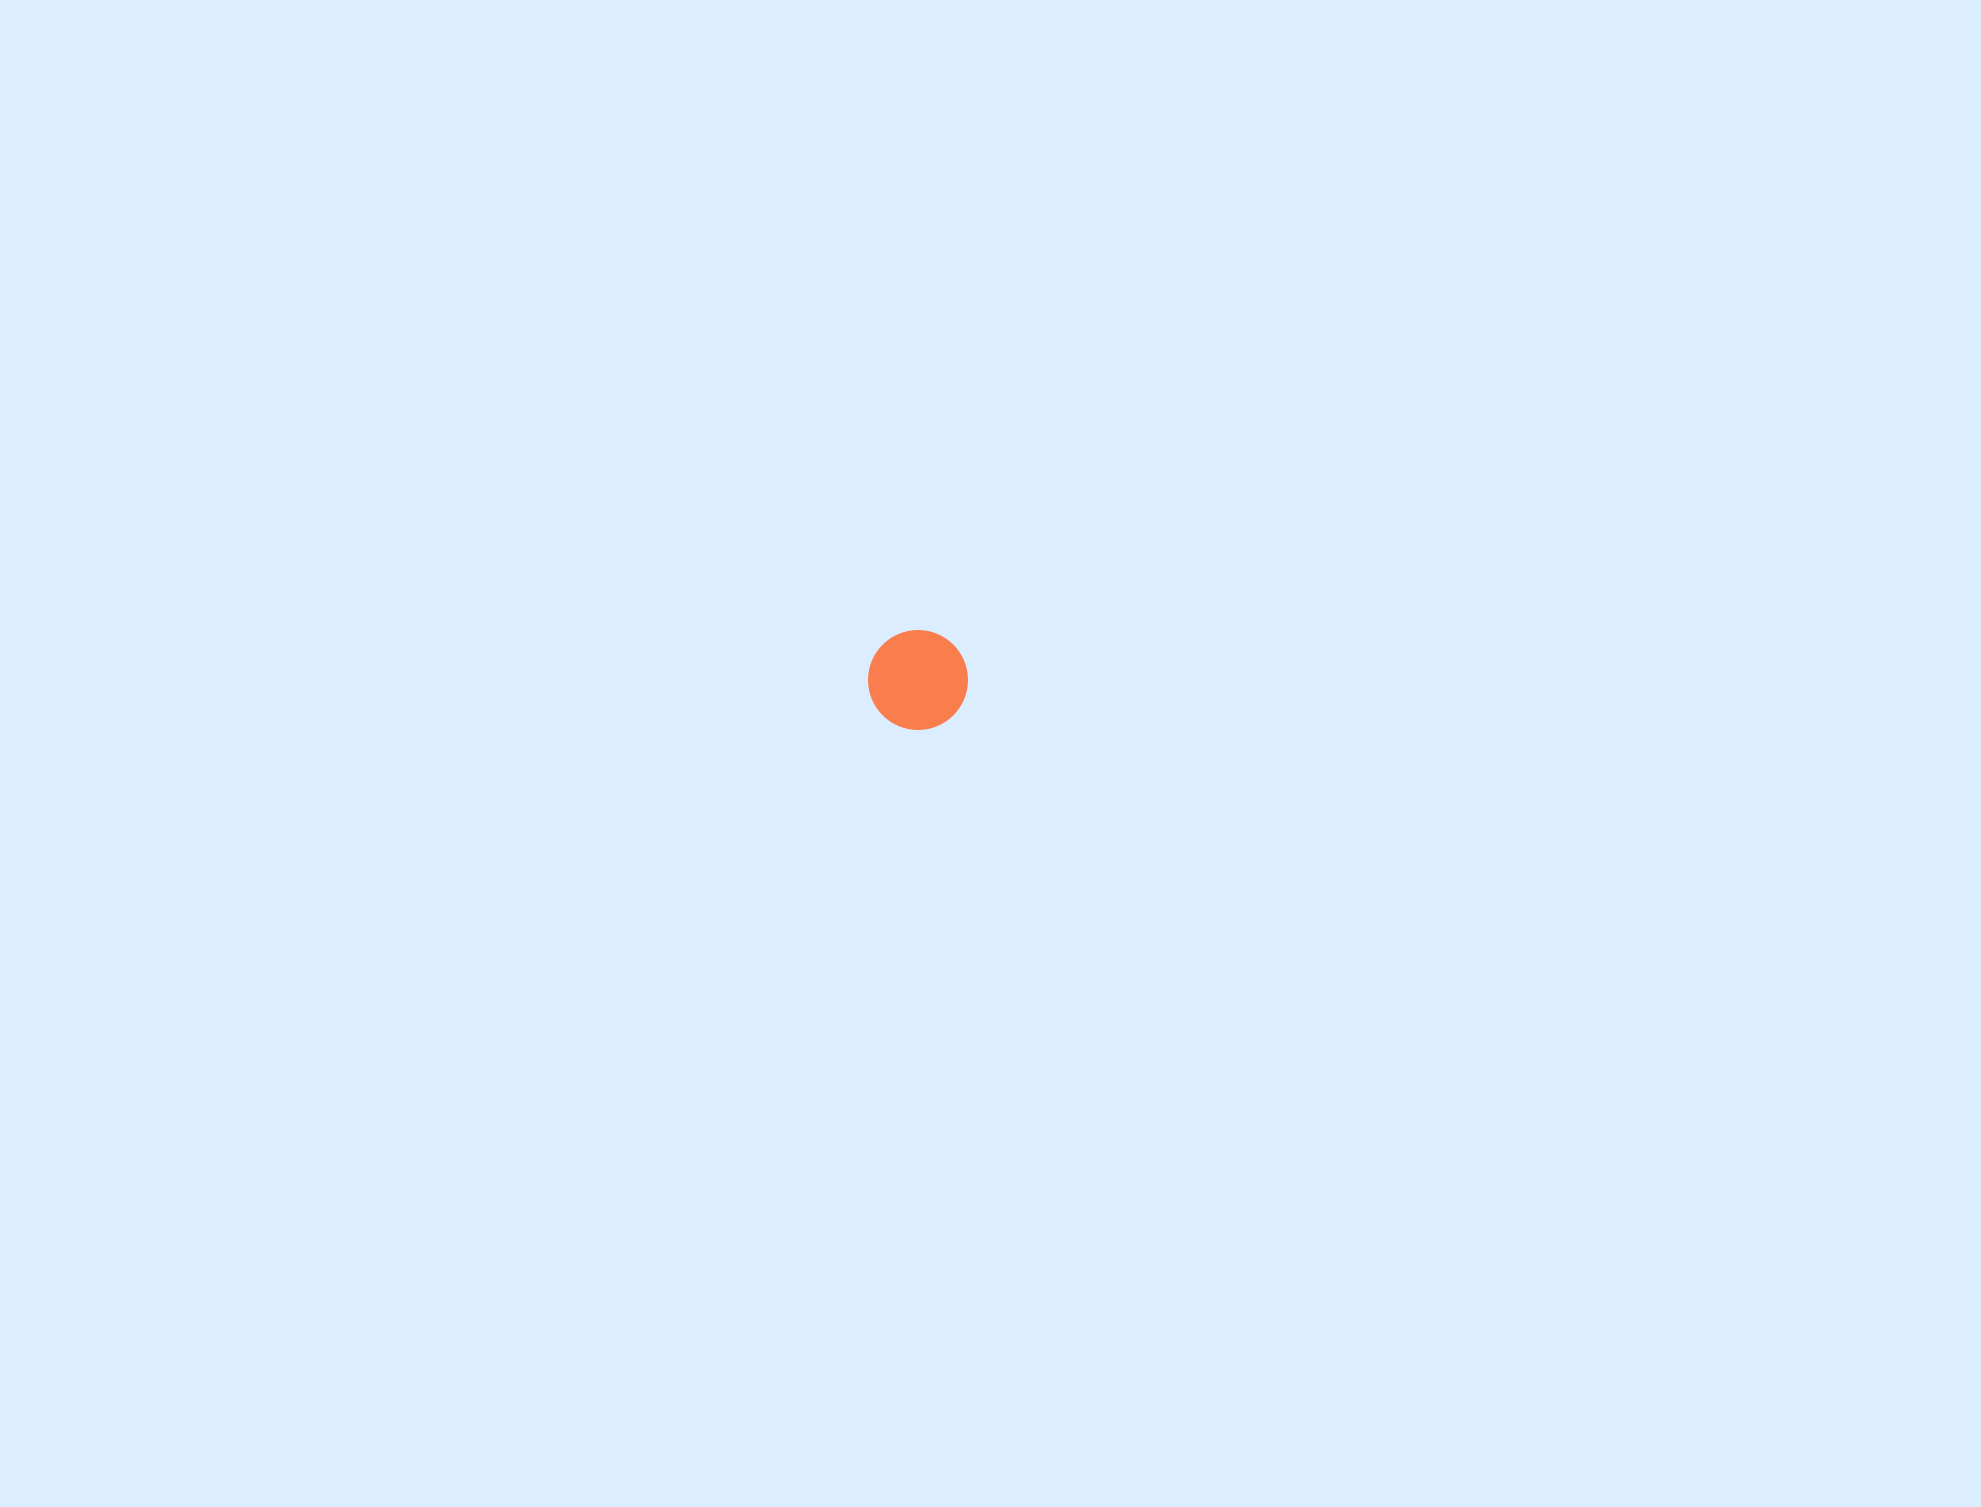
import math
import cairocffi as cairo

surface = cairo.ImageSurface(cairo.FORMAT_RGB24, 1981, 1507)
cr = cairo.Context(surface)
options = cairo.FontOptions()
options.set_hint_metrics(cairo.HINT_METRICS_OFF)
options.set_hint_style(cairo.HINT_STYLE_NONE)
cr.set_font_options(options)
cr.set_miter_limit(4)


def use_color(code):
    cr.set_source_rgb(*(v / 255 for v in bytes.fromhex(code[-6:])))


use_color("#dcedff")
cr.paint()
use_color("#f97d4d")
cr.arc(918, 680, 50, 0, 2 * math.pi)
cr.fill()
surface.write_to_png("result.png")
